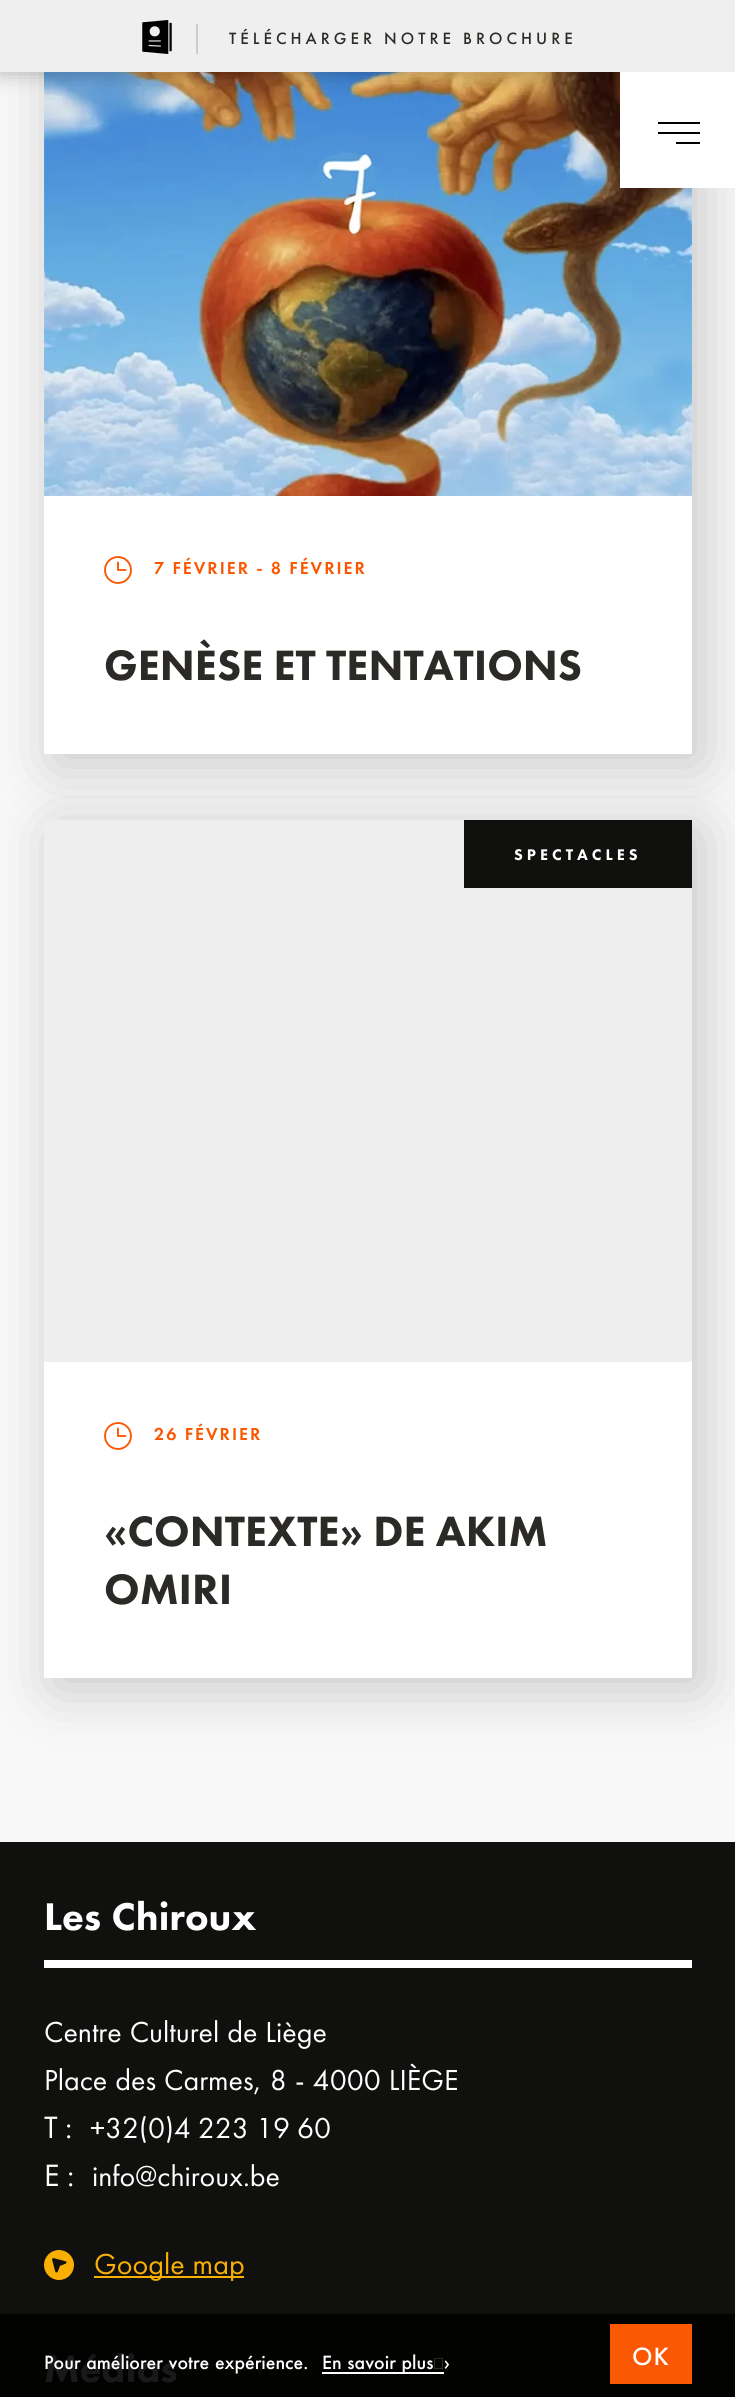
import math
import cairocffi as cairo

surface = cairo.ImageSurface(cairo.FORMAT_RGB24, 735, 2397)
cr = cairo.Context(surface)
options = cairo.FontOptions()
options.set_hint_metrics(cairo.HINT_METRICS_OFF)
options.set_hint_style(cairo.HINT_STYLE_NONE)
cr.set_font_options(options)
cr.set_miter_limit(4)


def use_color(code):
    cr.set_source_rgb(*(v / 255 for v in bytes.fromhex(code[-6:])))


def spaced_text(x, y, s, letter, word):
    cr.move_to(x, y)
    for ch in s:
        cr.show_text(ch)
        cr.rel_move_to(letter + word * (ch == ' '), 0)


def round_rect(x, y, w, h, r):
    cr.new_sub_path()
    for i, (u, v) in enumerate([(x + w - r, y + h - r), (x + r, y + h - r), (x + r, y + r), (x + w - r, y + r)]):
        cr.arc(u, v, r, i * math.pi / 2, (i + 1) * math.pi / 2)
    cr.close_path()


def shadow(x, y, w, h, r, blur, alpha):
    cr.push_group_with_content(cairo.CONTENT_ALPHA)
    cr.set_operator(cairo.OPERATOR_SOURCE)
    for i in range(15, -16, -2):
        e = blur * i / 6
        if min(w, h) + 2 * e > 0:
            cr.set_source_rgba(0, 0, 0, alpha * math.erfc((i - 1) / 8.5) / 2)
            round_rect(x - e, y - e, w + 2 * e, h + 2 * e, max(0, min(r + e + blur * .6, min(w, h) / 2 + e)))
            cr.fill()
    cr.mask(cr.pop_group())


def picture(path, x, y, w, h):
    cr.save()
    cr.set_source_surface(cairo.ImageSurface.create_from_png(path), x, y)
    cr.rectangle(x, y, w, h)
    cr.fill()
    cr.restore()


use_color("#f8f8f8")
cr.paint()
use_color("#000000")
shadow(54, -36, 648, 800, 0, 30, 0.2)
picture("img2.png", 44, 72, 648, 424)
shadow(0, -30, 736, 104, 0, 10, 0.25)
use_color("#efefef")
cr.rectangle(0, 0, 735, 72)
cr.fill()
picture("img1.png", 142, 20, 30, 34)
cr.select_font_face("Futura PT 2 Medium")
cr.set_font_size(17)
use_color("#2c2a26")
spaced_text(229, 44, "TÉLÉCHARGER NOTRE BROCHURE", 4, 0)
use_color("#cccccc")
cr.rectangle(196, 24, 2, 30)
cr.fill()
use_color("#ffffff")
cr.rectangle(620, 72, 115, 116)
cr.fill()
use_color("#000000")
cr.rectangle(658, 132, 42, 2)
cr.fill()
cr.rectangle(658, 122, 42, 2)
cr.fill()
cr.rectangle(676, 142, 24, 2)
cr.fill()
use_color("#ffffff")
cr.rectangle(44, 496, 648, 258)
cr.fill()
cr.arc(118, 570, 13, 0, 2 * math.pi)
use_color("#fa5802")
cr.set_line_width(1.9)
cr.stroke()
cr.new_path()
cr.move_to(118, 562.5)
cr.line_to(118, 570)
cr.line_to(125.5, 570)
cr.set_line_cap(cairo.LINE_CAP_ROUND)
cr.set_line_join(cairo.LINE_JOIN_ROUND)
cr.stroke()
cr.select_font_face("Futura PT Medium")
cr.set_font_size(18)
spaced_text(154, 574, "7 FÉVRIER - 8 FÉVRIER", 2, 0)
cr.select_font_face("Futura PT Black")
cr.set_font_size(44)
use_color("#2c2a26")
cr.move_to(104, 680)
cr.show_text("GENÈSE ET TENTATIONS")
use_color("#000000")
shadow(54, 830, 648, 858, 0, 30, 0.2)
use_color("#eeeeee")
cr.rectangle(44, 820, 648, 542)
cr.fill()
use_color("#10100e")
cr.rectangle(464, 820, 228, 68)
cr.fill()
cr.set_font_size(16)
use_color("#ffffff")
spaced_text(514, 860, "SPECTACLES", 4, 0)
cr.rectangle(44, 1362, 648, 316)
cr.fill()
cr.arc(118, 1436, 13, 0, 2 * math.pi)
use_color("#fa5802")
cr.set_line_cap(cairo.LINE_CAP_BUTT)
cr.set_line_join(cairo.LINE_JOIN_MITER)
cr.stroke()
cr.new_path()
cr.move_to(118, 1428.5)
cr.line_to(118, 1436)
cr.line_to(125.5, 1436)
cr.set_line_cap(cairo.LINE_CAP_ROUND)
cr.set_line_join(cairo.LINE_JOIN_ROUND)
cr.stroke()
cr.select_font_face("Futura PT Medium")
cr.set_font_size(18)
spaced_text(154, 1440, "26 FÉVRIER", 2, 0)
cr.select_font_face("Futura PT Black")
cr.set_font_size(44)
use_color("#2c2a26")
cr.move_to(104, 1546)
cr.show_text("«CONTEXTE» DE AKIM")
cr.move_to(104, 1604)
cr.show_text("OMIRI")
use_color("#10100e")
cr.rectangle(0, 1844, 735, 470)
cr.fill()
use_color("#020201")
cr.rectangle(0, 2314, 735, 83)
cr.fill()
use_color("#0e0e0d")
cr.rectangle(0, 1842, 735, 2)
cr.fill()
cr.set_font_size(40)
use_color("#ffffff")
spaced_text(44, 1930, "Les Chiroux", 0, 1)
cr.rectangle(44, 1960, 648, 8)
cr.fill()
cr.select_font_face("Futura PT")
cr.set_font_size(30)
spaced_text(44, 2042, "Centre Culturel de Liège", 0, 1)
spaced_text(44, 2090, "Place des Carmes, 8", 0, 1)
spaced_text(295, 2090, "- 4000 LIÈGE", 0, 1)
cr.set_font_size(32)
cr.move_to(44, 2138)
cr.show_text("T :")
cr.set_font_size(30)
cr.move_to(90, 2138)
cr.show_text("+32(0)4 223 19 60")
cr.set_font_size(32)
cr.move_to(44, 2186)
cr.show_text("E :")
cr.set_font_size(30)
cr.move_to(92, 2186)
cr.show_text("info@chiroux.be")
picture("img3.png", 44, 2250, 30, 30)
use_color("#fab002")
cr.rectangle(94, 2276, 150, 2)
cr.fill()
spaced_text(94, 2274, "Google map", 0, 1)
cr.select_font_face("Futura PT Black")
cr.set_font_size(40)
use_color("#191919")
cr.move_to(44, 2382)
cr.show_text("Médias")
cr.select_font_face("Futura PT 2 Medium")
cr.set_font_size(20)
use_color("#ffffff")
spaced_text(44, 2369, "Pour améliorer votre expérience.", 0, 1)
cr.rectangle(322, 2372, 122, 2)
cr.fill()
spaced_text(322, 2369, "En savoir plus ›", 0, 1)
use_color("#fa5802")
cr.rectangle(610, 2324, 82, 60)
cr.fill()
cr.set_font_size(26)
use_color("#ffffff")
spaced_text(632, 2365, "OK", 1, 0)
surface.write_to_png("result.png")
